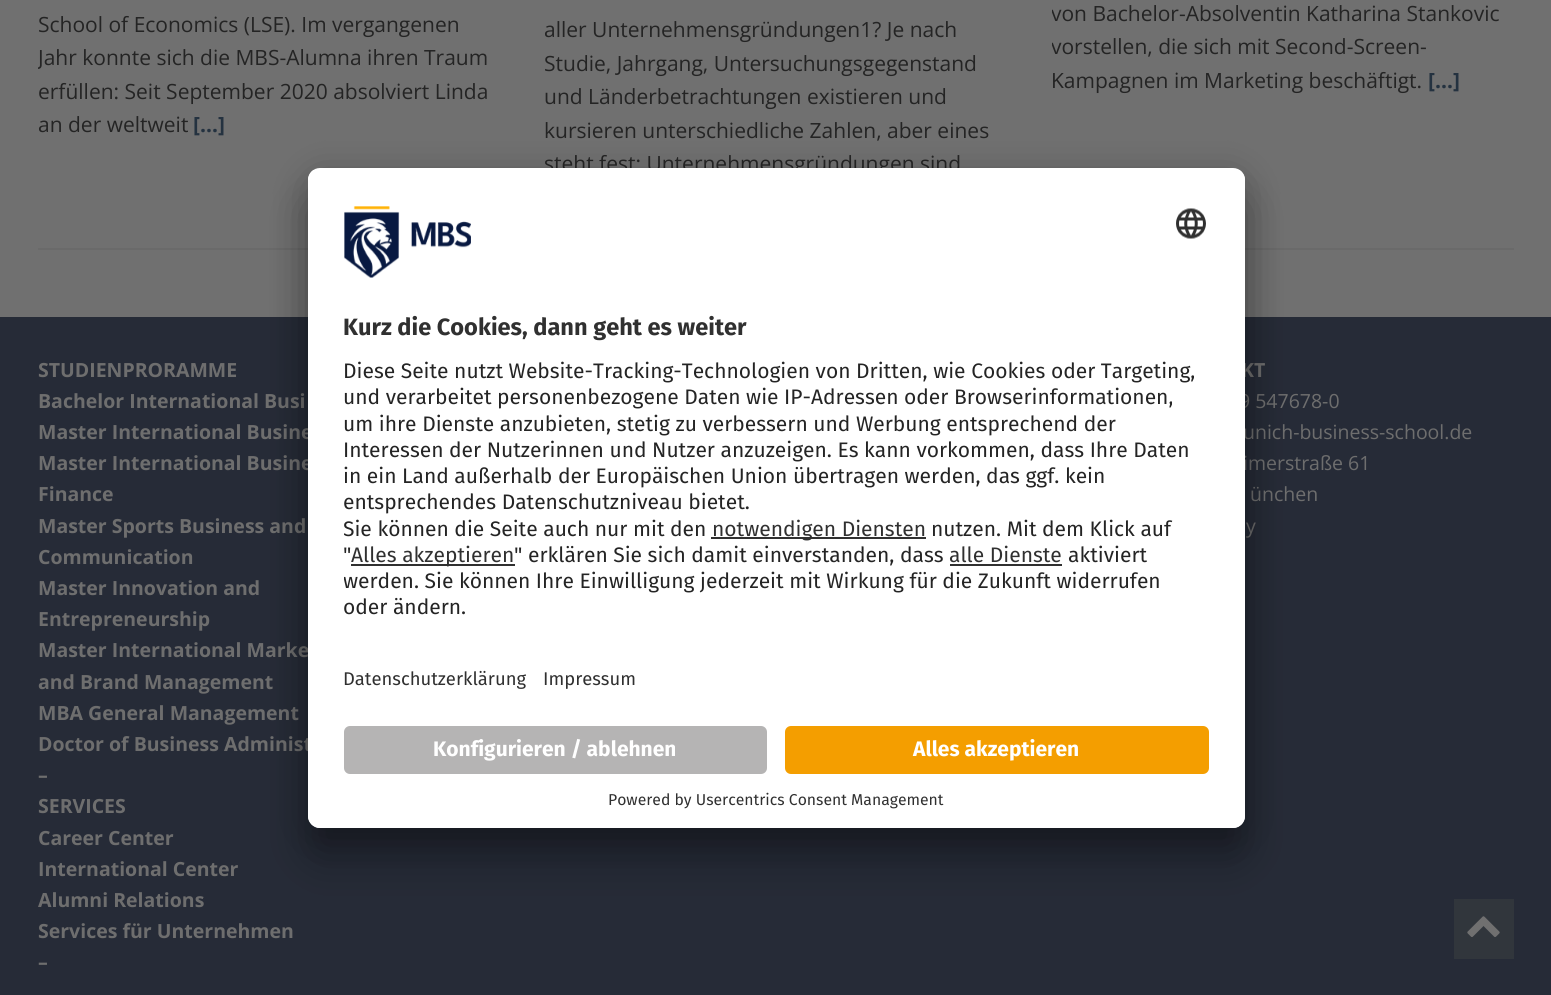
import math
import cairocffi as cairo

surface = cairo.ImageSurface(cairo.FORMAT_RGB24, 1551, 995)
cr = cairo.Context(surface)
options = cairo.FontOptions()
options.set_hint_metrics(cairo.HINT_METRICS_OFF)
options.set_hint_style(cairo.HINT_STYLE_NONE)
cr.set_font_options(options)
cr.set_miter_limit(4)


def use_color(code):
    cr.set_source_rgb(*(v / 255 for v in bytes.fromhex(code[-6:])))


def round_rect(x, y, w, h, r):
    cr.new_sub_path()
    for i, (u, v) in enumerate([(x + w - r, y + h - r), (x + r, y + h - r), (x + r, y + r), (x + w - r, y + r)]):
        cr.arc(u, v, r, i * math.pi / 2, (i + 1) * math.pi / 2)
    cr.close_path()


def shadow(x, y, w, h, r, blur, alpha):
    cr.push_group_with_content(cairo.CONTENT_ALPHA)
    cr.set_operator(cairo.OPERATOR_SOURCE)
    for i in range(15, -16, -2):
        e = blur * i / 6
        if min(w, h) + 2 * e > 0:
            cr.set_source_rgba(0, 0, 0, alpha * math.erfc((i - 1) / 8.5) / 2)
            round_rect(x - e, y - e, w + 2 * e, h + 2 * e, max(0, min(r + e + blur * .6, min(w, h) / 2 + e)))
            cr.fill()
    cr.mask(cr.pop_group())


def picture(path, x, y, w, h):
    cr.save()
    cr.set_source_surface(cairo.ImageSurface.create_from_png(path), x, y)
    cr.rectangle(x, y, w, h)
    cr.fill()
    cr.restore()


use_color("#707070")
cr.paint()
use_color("#6a6a6a")
cr.rectangle(38, 248, 270, 2)
cr.fill()
cr.select_font_face("Open Sans")
cr.set_font_size(21)
use_color("#242424")
cr.move_to(38, 32)
cr.show_text("School of Economics (LSE). Im vergangenen")
cr.save()
cr.rectangle(38, 0, 462, 143)
cr.clip()
cr.move_to(38, 65)
cr.show_text("Jahr konnte sich die MBS-Alumna ihren Traum")
cr.restore()
cr.move_to(38, 99)
cr.show_text("erfüllen: Seit September 2020 absolviert Linda")
cr.move_to(38, 132)
cr.show_text("an der weltweit")
cr.select_font_face("Open Sans", cairo.FONT_SLANT_NORMAL, cairo.FONT_WEIGHT_BOLD)
use_color("#243240")
cr.move_to(193, 132)
cr.show_text("[…]")
cr.select_font_face("Open Sans")
use_color("#242424")
cr.move_to(544, 37)
cr.show_text("aller Unternehmensgründungen1? Je nach")
cr.move_to(544, 71)
cr.show_text("Studie, Jahrgang, Untersuchungsgegenstand")
cr.move_to(544, 104)
cr.show_text("und Länderbetrachtungen existieren und")
cr.move_to(544, 138)
cr.show_text("kursieren unterschiedliche Zahlen, aber eines")
cr.move_to(544, 171)
cr.show_text("steht fest: Unternehmensgründungen sind")
use_color("#6a6a6a")
cr.rectangle(1245, 248, 269, 2)
cr.fill()
cr.save()
cr.rectangle(1052, 0, 462, 98)
cr.clip()
use_color("#242424")
cr.move_to(1051, 21)
cr.show_text("von Bachelor-Absolventin Katharina Stankovic")
cr.move_to(1051, 54)
cr.show_text("vorstellen, die sich mit Second-Screen-")
cr.restore()
use_color("#242424")
cr.move_to(1051, 88)
cr.show_text("Kampagnen im Marketing beschäftigt.")
cr.select_font_face("Open Sans", cairo.FONT_SLANT_NORMAL, cairo.FONT_WEIGHT_BOLD)
use_color("#243240")
cr.move_to(1428, 88)
cr.show_text("[…]")
use_color("#262b37")
cr.rectangle(0, 317, 1551, 678)
cr.fill()
cr.set_font_size(19.5)
use_color("#6e6e6e")
cr.move_to(38, 377)
cr.show_text("STUDIENPRORAMME")
cr.move_to(38, 408)
cr.show_text("Bachelor International Busi")
cr.move_to(38, 439)
cr.show_text("Master International Busine")
cr.move_to(38, 470)
cr.show_text("Master International Busine")
cr.move_to(38, 501)
cr.show_text("Finance")
cr.move_to(38, 533)
cr.show_text("Master Sports Business and")
cr.move_to(38, 564)
cr.show_text("Communication")
cr.move_to(38, 595)
cr.show_text("Master Innovation and")
cr.move_to(38, 626)
cr.show_text("Entrepreneurship")
cr.move_to(38, 657)
cr.show_text("Master International Marke")
cr.move_to(38, 689)
cr.show_text("and Brand Management")
cr.move_to(38, 720)
cr.show_text("MBA General Management")
cr.move_to(38, 751)
cr.show_text("Doctor of Business Administ")
cr.move_to(38, 782)
cr.show_text("–")
cr.move_to(38, 813)
cr.show_text("SERVICES")
cr.move_to(38, 845)
cr.show_text("Career Center")
cr.move_to(38, 876)
cr.show_text("International Center")
cr.move_to(38, 907)
cr.show_text("Alumni Relations")
cr.move_to(38, 938)
cr.show_text("Services für Unternehmen")
cr.move_to(38, 969)
cr.show_text("–")
cr.move_to(1241, 377)
cr.show_text("KT")
cr.select_font_face("Open Sans")
cr.move_to(1239, 408)
cr.show_text("9 547678-0")
cr.move_to(1243, 439)
cr.show_text("unich-business-school.de")
cr.move_to(1243, 470)
cr.show_text("imerstraße 61")
cr.move_to(1250, 501)
cr.show_text("ünchen")
cr.move_to(1246, 533)
cr.show_text("y")
use_color("#31363c")
cr.rectangle(1454, 899, 60, 60)
cr.fill()
picture("img1.png", 1467, 916, 33, 21)
use_color("#000000")
shadow(308, 198, 937, 660, 12, 21, 0.3)
shadow(308, 176, 937, 660, 12, 19.5, 0.22)
use_color("#ffffff")
round_rect(308, 168, 937, 660, 12)
cr.fill()
cr.save()
round_rect(308, 168, 937, 660, 12)
cr.clip()
cr.new_path()
cr.move_to(320, 168)
cr.line_to(1233, 168)
cr.curve_to(1239.5, 168, 1245, 173.5, 1245, 180)
cr.line_to(1245, 714)
cr.line_to(308, 714)
cr.line_to(308, 180)
cr.curve_to(308, 173.5, 313.5, 168, 320, 168)
cr.close_path()
cr.clip()
cr.rectangle(308, 170, 937, 544)
cr.fill()
cr.restore()
picture("img2.png", 344, 206, 127, 72)
picture("img3.png", 1176, 208, 30, 31)
cr.select_font_face("Fira Sans", cairo.FONT_SLANT_NORMAL, cairo.FONT_WEIGHT_BOLD)
cr.set_font_size(23.6)
use_color("#303030")
cr.move_to(343, 335)
cr.show_text("Kurz die Cookies, dann geht es weiter")
cr.select_font_face("Fira Sans")
cr.set_font_size(21)
use_color("#242424")
cr.move_to(343, 378)
cr.show_text("Diese Seite nutzt Website-Tracking-Technologien von Dritten, wie Cookies oder Targeting,")
cr.move_to(343, 404)
cr.show_text("und verarbeitet personenbezogene Daten wie IP-Adressen oder Browserinformationen,")
cr.move_to(343, 431)
cr.show_text("um ihre Dienste anzubieten, stetig zu verbessern und Werbung entsprechend der")
cr.move_to(343, 457)
cr.show_text("Interessen der Nutzerinnen und Nutzer anzuzeigen. Es kann vorkommen, dass Ihre Daten")
cr.move_to(343, 483)
cr.show_text("in ein Land außerhalb der Europäischen Union übertragen werden, das ggf. kein")
cr.move_to(343, 509)
cr.show_text("entsprechendes Datenschutzniveau bietet.")
cr.save()
cr.rectangle(344, 353, 865, 274)
cr.clip()
cr.move_to(343, 536)
cr.show_text("Sie können die Seite auch nur mit den")
cr.restore()
use_color("#303030")
cr.rectangle(711, 537, 215, 2)
cr.fill()
cr.move_to(712, 536)
cr.show_text("notwendigen Diensten")
use_color("#242424")
cr.move_to(931, 536)
cr.show_text("nutzen. Mit dem Klick auf")
cr.move_to(343, 562)
cr.show_text("\"")
use_color("#303030")
cr.rectangle(351, 564, 164, 2)
cr.fill()
cr.move_to(351, 562)
cr.show_text("Alles akzeptieren")
use_color("#242424")
cr.move_to(514, 562)
cr.show_text("\" erklären Sie sich damit einverstanden, dass")
use_color("#303030")
cr.move_to(949, 562)
cr.show_text("alle Dienste")
cr.rectangle(950, 564, 112, 2)
cr.fill()
use_color("#242424")
cr.move_to(1068, 562)
cr.show_text("aktiviert")
cr.save()
cr.rectangle(344, 353, 865, 274)
cr.clip()
cr.move_to(343, 588)
cr.show_text("werden. Sie können Ihre Einwilligung jederzeit mit Wirkung für die Zukunft widerrufen")
cr.restore()
cr.move_to(343, 614)
cr.show_text("oder ändern.")
cr.set_font_size(18.4)
use_color("#303030")
cr.move_to(343, 685)
cr.show_text("Datenschutzerklärung")
cr.move_to(543, 685)
cr.show_text("Impressum")
use_color("#ffffff")
cr.new_path()
cr.move_to(308, 714)
cr.line_to(1245, 714)
cr.line_to(1245, 816)
cr.curve_to(1245, 822.5, 1239.5, 828, 1233, 828)
cr.line_to(320, 828)
cr.curve_to(313.5, 828, 308, 822.5, 308, 816)
cr.close_path()
cr.fill()
use_color("#b5b4b4")
round_rect(344, 726, 423, 48, 6)
cr.fill()
cr.select_font_face("Fira Sans", cairo.FONT_SLANT_NORMAL, cairo.FONT_WEIGHT_BOLD)
cr.set_font_size(21)
use_color("#ffffff")
cr.move_to(433, 756)
cr.show_text("Konfigurieren / ablehnen")
use_color("#f49e00")
round_rect(785, 726, 424, 48, 6)
cr.fill()
use_color("#ffffff")
cr.move_to(913, 756)
cr.show_text("Alles akzeptieren")
cr.select_font_face("Fira Sans")
cr.set_font_size(15.75)
use_color("#303030")
cr.move_to(608, 805)
cr.show_text("Powered by Usercentrics Consent Management")
surface.write_to_png("result.png")
